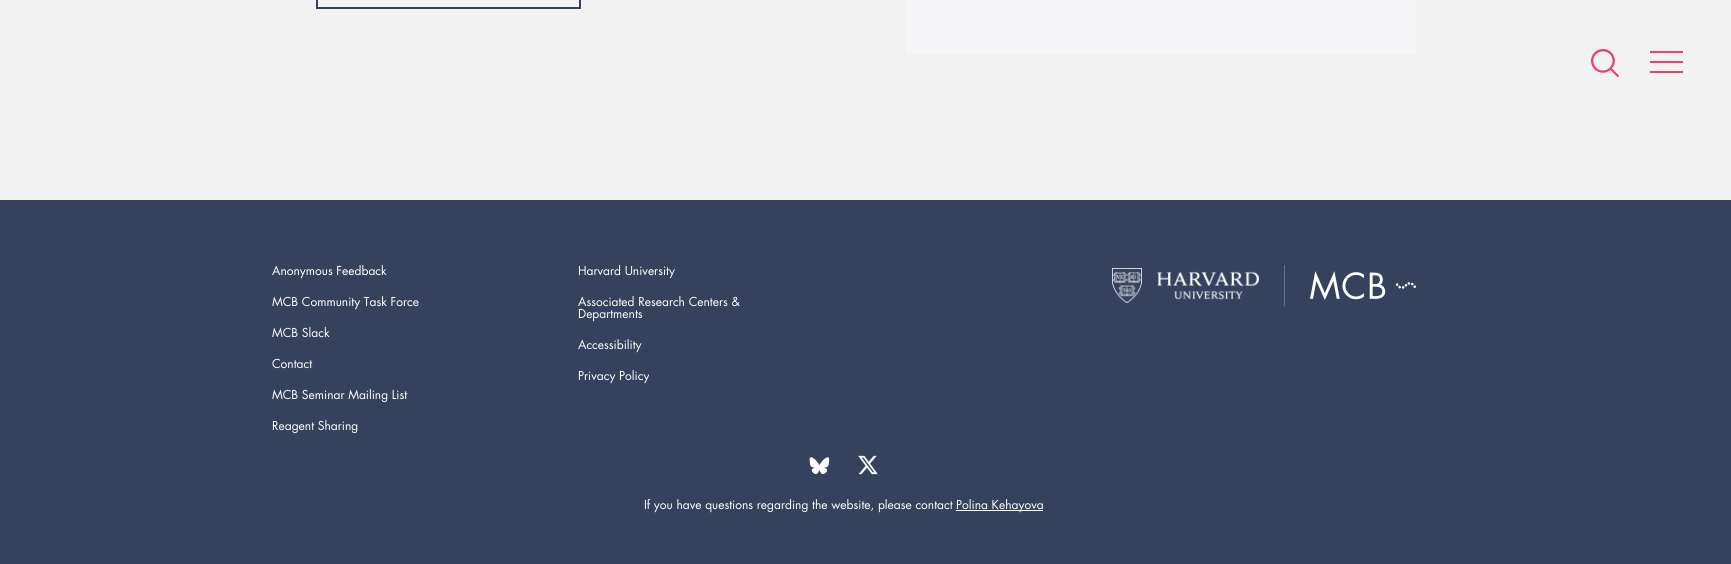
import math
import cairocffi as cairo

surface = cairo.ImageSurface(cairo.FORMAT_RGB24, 1731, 564)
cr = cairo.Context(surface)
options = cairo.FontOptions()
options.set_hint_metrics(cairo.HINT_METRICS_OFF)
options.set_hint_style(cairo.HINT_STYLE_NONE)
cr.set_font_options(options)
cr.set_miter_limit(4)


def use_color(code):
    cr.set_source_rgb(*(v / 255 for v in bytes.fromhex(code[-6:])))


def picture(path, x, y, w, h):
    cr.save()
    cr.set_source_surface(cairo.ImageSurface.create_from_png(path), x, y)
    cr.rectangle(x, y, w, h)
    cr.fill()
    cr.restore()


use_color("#36425d")
cr.paint()
use_color("#f2f2f2")
cr.rectangle(0, 0, 1731, 200)
cr.fill()
cr.rectangle(317, -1, 263, 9)
use_color("#36425d")
cr.stroke()
use_color("#f5f5f7")
cr.rectangle(906, 0, 510, 54)
cr.fill()
picture("img1.png", 1591, 49, 28, 28)
use_color("#f0416e")
cr.rectangle(1650, 51, 33, 2)
cr.fill()
cr.rectangle(1650, 61, 33, 2)
cr.fill()
cr.rectangle(1650, 71, 33, 2)
cr.fill()
cr.select_font_face("Futura")
cr.set_font_size(12)
use_color("#ffffff")
cr.move_to(272, 275)
cr.show_text("Anonymous Feedback")
cr.move_to(272, 306)
cr.show_text("MCB Community Task Force")
cr.move_to(272, 337)
cr.show_text("MCB Slack")
cr.move_to(272, 368)
cr.show_text("Contact")
cr.move_to(272, 399)
cr.show_text("MCB Seminar Mailing List")
cr.move_to(272, 430)
cr.show_text("Reagent Sharing")
cr.move_to(578, 275)
cr.show_text("Harvard University")
cr.move_to(578, 306)
cr.show_text("Associated Research Centers &")
cr.move_to(578, 318)
cr.show_text("Departments")
cr.move_to(578, 349)
cr.show_text("Accessibility")
cr.move_to(578, 380)
cr.show_text("Privacy Policy")
use_color("#687186")
cr.rectangle(1284, 265, 1, 41)
cr.fill()
picture("img2.png", 1112, 268, 147, 35)
picture("img3.png", 1310, 271, 106, 29)
picture("img4.png", 809, 457, 21, 18)
picture("img5.png", 858, 455, 20, 20)
use_color("#ffffff")
cr.move_to(644, 509)
cr.show_text("If you have questions regarding the website, please contact")
cr.rectangle(956, 510, 87, 1)
cr.fill()
cr.move_to(956, 509)
cr.show_text("Polina Kehayova")
surface.write_to_png("result.png")
